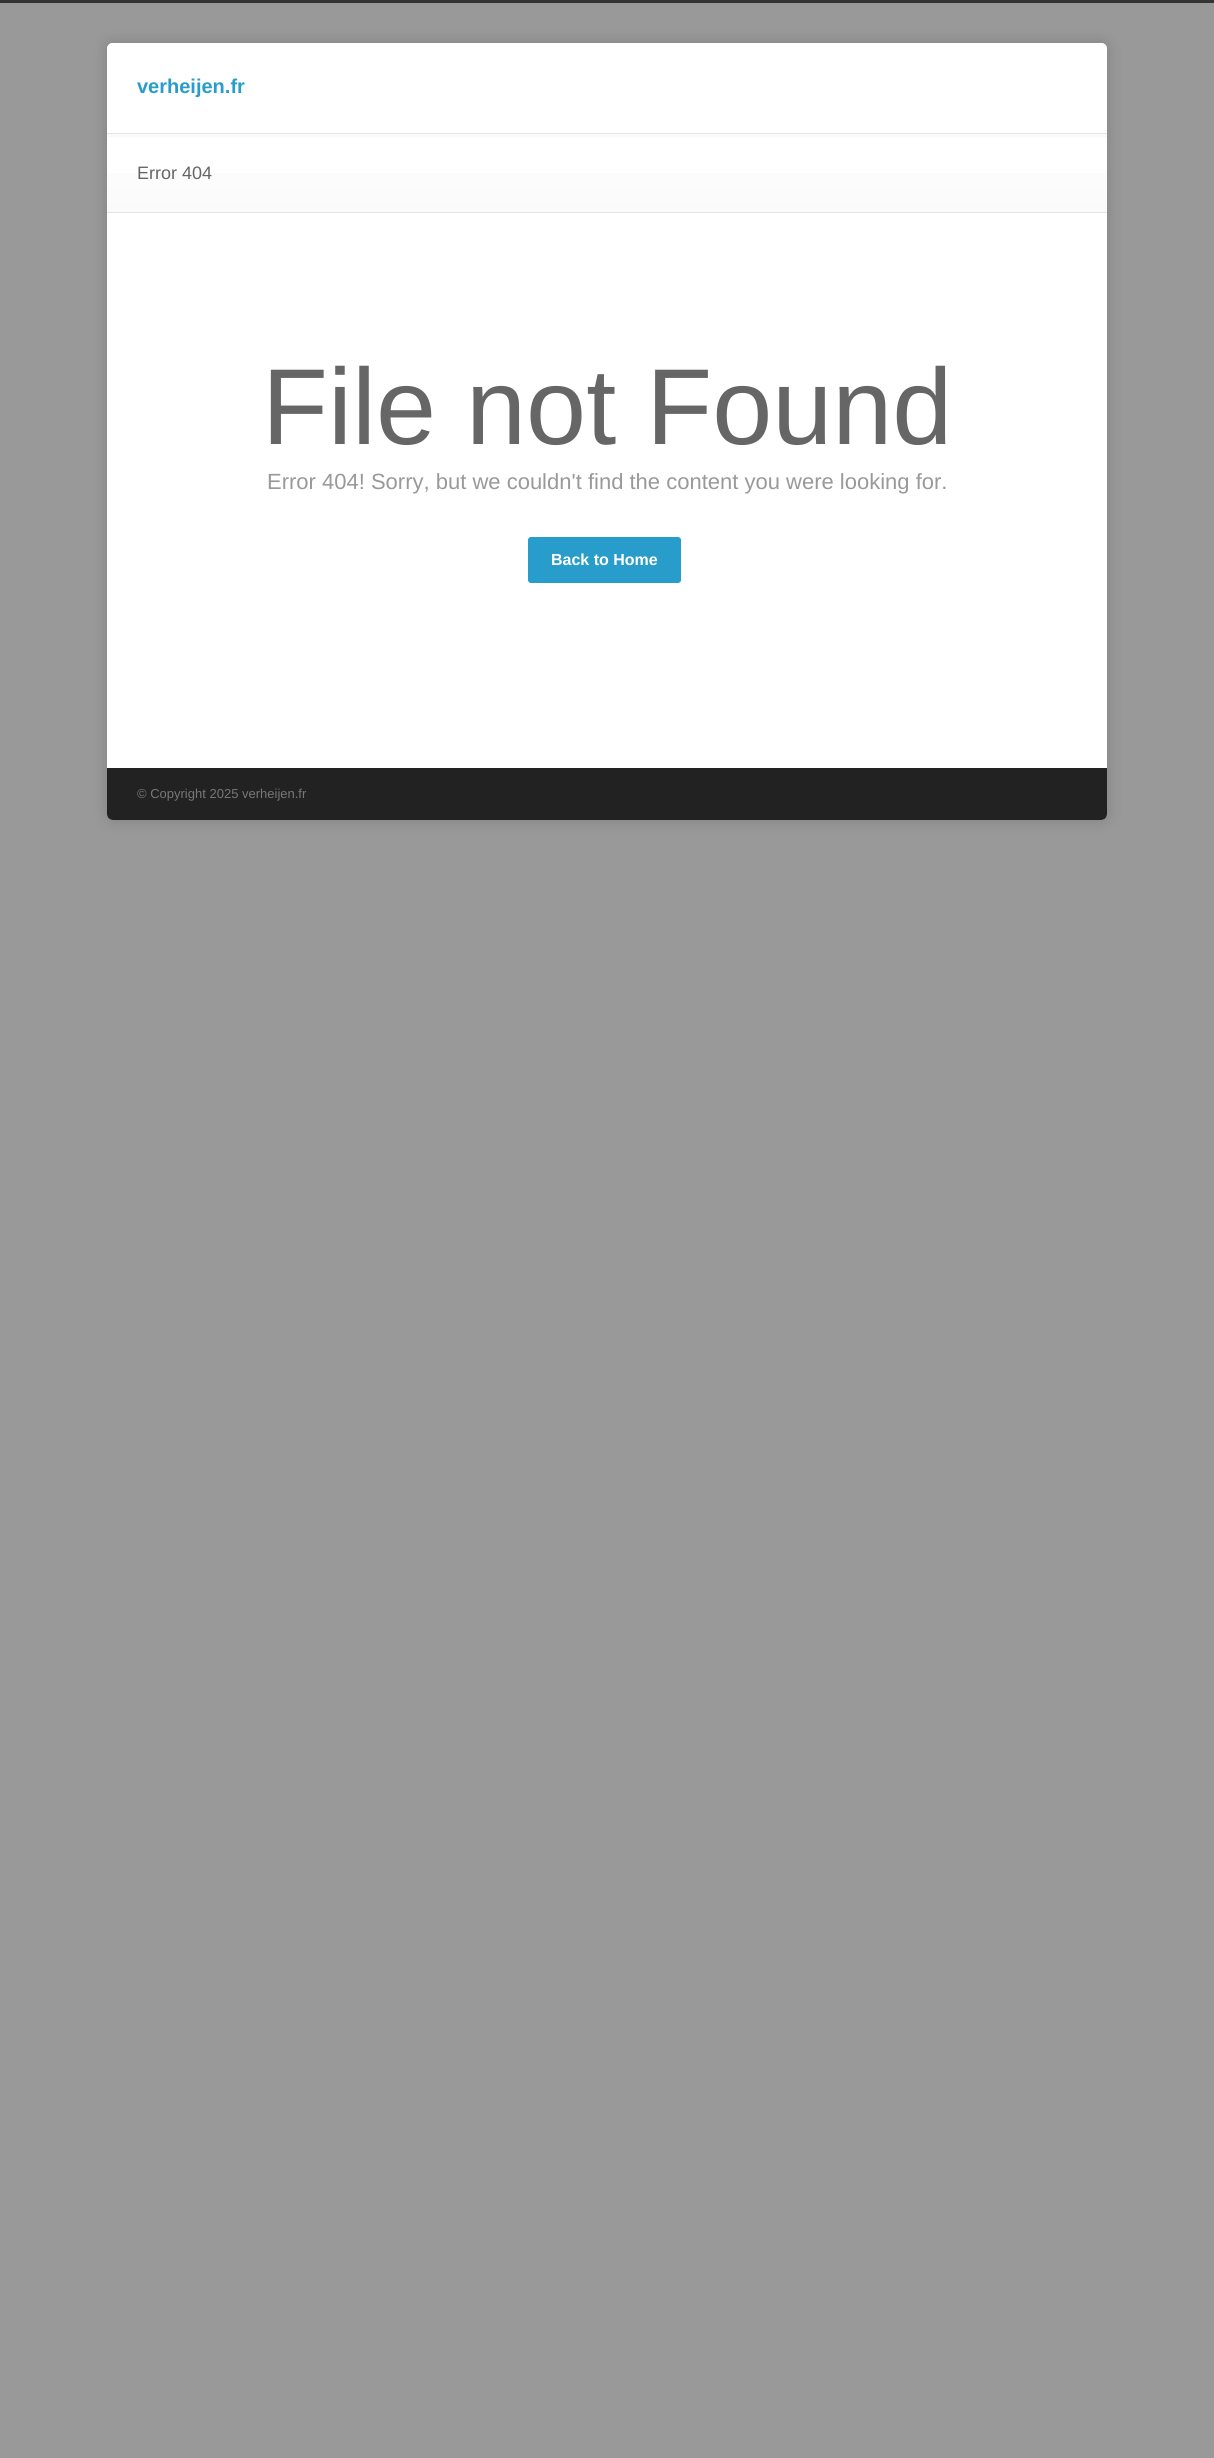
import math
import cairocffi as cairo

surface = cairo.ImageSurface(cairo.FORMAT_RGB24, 1214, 2458)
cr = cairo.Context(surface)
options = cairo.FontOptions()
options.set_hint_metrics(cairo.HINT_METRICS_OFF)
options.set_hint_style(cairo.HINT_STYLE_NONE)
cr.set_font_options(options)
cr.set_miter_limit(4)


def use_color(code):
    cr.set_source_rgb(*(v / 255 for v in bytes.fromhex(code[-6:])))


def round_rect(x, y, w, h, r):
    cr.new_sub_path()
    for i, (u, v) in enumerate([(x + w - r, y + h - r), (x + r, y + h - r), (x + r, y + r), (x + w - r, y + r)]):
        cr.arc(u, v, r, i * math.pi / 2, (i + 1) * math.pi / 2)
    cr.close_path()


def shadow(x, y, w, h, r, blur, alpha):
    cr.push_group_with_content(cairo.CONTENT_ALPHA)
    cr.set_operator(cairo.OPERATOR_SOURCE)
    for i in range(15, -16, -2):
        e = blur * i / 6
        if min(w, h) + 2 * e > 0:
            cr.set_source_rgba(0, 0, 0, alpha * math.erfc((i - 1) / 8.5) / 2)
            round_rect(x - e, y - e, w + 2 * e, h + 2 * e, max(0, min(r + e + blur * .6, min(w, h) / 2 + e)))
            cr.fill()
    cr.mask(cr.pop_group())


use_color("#999999")
cr.paint()
use_color("#333333")
cr.rectangle(0, 0, 1214, 3)
cr.fill()
use_color("#000000")
shadow(107, 43, 1000, 777, 6, 8, 0.16)
use_color("#ffffff")
round_rect(107, 43, 1000, 777, 6)
cr.fill()
cr.new_path()
cr.move_to(113, 43)
cr.line_to(1101, 43)
cr.curve_to(1104.5, 43, 1107, 45.5, 1107, 49)
cr.line_to(1107, 133)
cr.line_to(107, 133)
cr.line_to(107, 49)
cr.curve_to(107, 45.5, 109.5, 43, 113, 43)
cr.close_path()
cr.fill()
cr.select_font_face("Liberation Sans", cairo.FONT_SLANT_NORMAL, cairo.FONT_WEIGHT_BOLD)
cr.set_font_size(20)
use_color("#289dcc")
cr.move_to(137, 93)
cr.show_text("verheijen.fr")
gradient = cairo.LinearGradient(607, 212, 607, 134)
gradient.add_color_stop_rgba(0, 0.98, 0.98, 0.98, 1)
gradient.add_color_stop_rgba(1, 1, 1, 1, 1)
cr.set_source(gradient)
cr.rectangle(107, 173, 1000, 39)
cr.fill()
use_color("#fafafa")
cr.rectangle(107, 134, 1000, 3)
cr.fill()
use_color("#e4e4e4")
cr.rectangle(107, 133, 1000, 1)
cr.fill()
cr.rectangle(107, 212, 1000, 1)
cr.fill()
cr.select_font_face("Liberation Sans")
cr.set_font_size(18)
use_color("#666666")
cr.move_to(137, 179)
cr.show_text("Error 404")
cr.set_font_size(108)
cr.move_to(262, 444)
cr.show_text("File not Found")
cr.set_font_size(22)
use_color("#999999")
cr.move_to(267, 489)
cr.show_text("Error 404! Sorry, but we couldn't find the content you were looking for.")
use_color("#289dcc")
round_rect(528.5, 537.5, 152, 45, 2.5)
cr.fill_preserve()
cr.set_line_width(1)
cr.stroke()
cr.select_font_face("Liberation Sans", cairo.FONT_SLANT_NORMAL, cairo.FONT_WEIGHT_BOLD)
cr.set_font_size(16)
use_color("#ffffff")
cr.move_to(551, 565)
cr.show_text("Back to Home")
use_color("#222222")
cr.new_path()
cr.move_to(107, 768)
cr.line_to(1107, 768)
cr.line_to(1107, 814)
cr.curve_to(1107, 817.5, 1104.5, 820, 1101, 820)
cr.line_to(113, 820)
cr.curve_to(109.5, 820, 107, 817.5, 107, 814)
cr.close_path()
cr.fill()
cr.select_font_face("Liberation Sans")
cr.set_font_size(13)
use_color("#777777")
cr.move_to(137, 798)
cr.show_text("© Copyright 2025 verheijen.fr")
surface.write_to_png("result.png")
